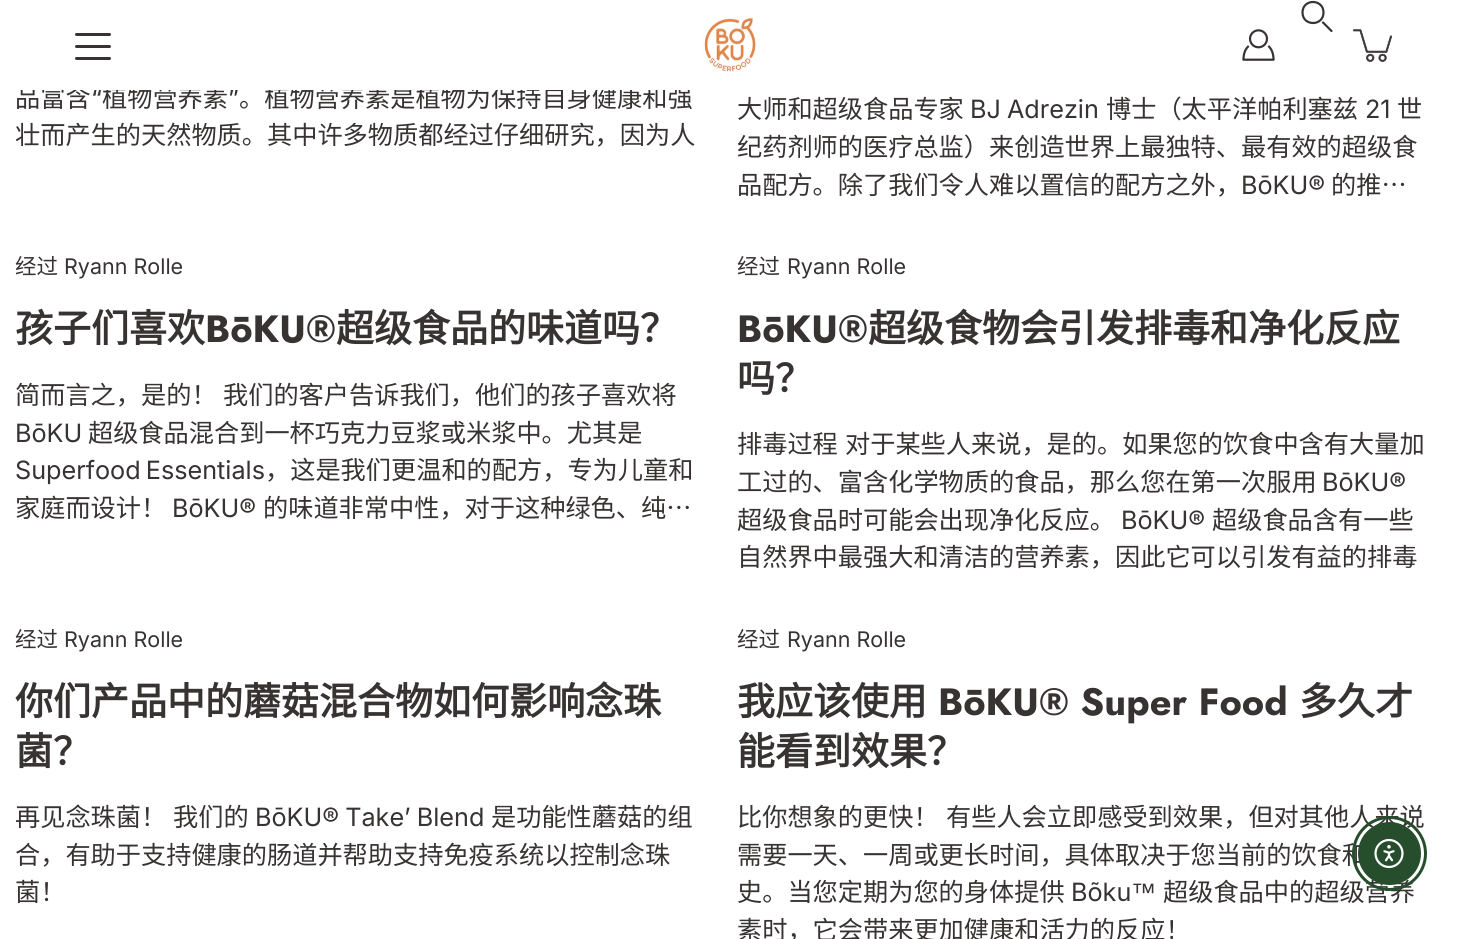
import math
import cairocffi as cairo

surface = cairo.ImageSurface(cairo.FORMAT_RGB24, 1459, 939)
cr = cairo.Context(surface)
options = cairo.FontOptions()
options.set_hint_metrics(cairo.HINT_METRICS_OFF)
options.set_hint_style(cairo.HINT_STYLE_NONE)
cr.set_font_options(options)
cr.set_miter_limit(4)


def use_color(code):
    cr.set_source_rgb(*(v / 255 for v in bytes.fromhex(code[-6:])))


def spaced_text(x, y, s, letter, word):
    cr.move_to(x, y)
    for ch in s:
        cr.show_text(ch)
        cr.rel_move_to(letter + word * (ch == ' '), 0)


def round_rect(x, y, w, h, r):
    cr.new_sub_path()
    for i, (u, v) in enumerate([(x + w - r, y + h - r), (x + r, y + h - r), (x + r, y + r), (x + w - r, y + r)]):
        cr.arc(u, v, r, i * math.pi / 2, (i + 1) * math.pi / 2)
    cr.close_path()


def picture(path, x, y, w, h):
    cr.save()
    cr.set_source_surface(cairo.ImageSurface.create_from_png(path), x, y)
    cr.rectangle(x, y, w, h)
    cr.fill()
    cr.restore()


use_color("#ffffff")
cr.paint()
cr.select_font_face("Noto Sans CJK SC")
cr.set_font_size(25.2)
use_color("#383333")
cr.move_to(15, 107)
cr.show_text("品富含")
cr.select_font_face("Inter")
cr.move_to(91, 107)
cr.show_text("“")
cr.select_font_face("Noto Sans CJK SC")
cr.move_to(102, 107)
cr.show_text("植物营养素")
cr.select_font_face("Inter")
cr.move_to(228, 107)
cr.show_text("”")
cr.select_font_face("Noto Sans CJK SC")
cr.move_to(239, 107)
cr.show_text("。植物营养素是植物为保持自身健康和强")
use_color("#ffffff")
cr.rectangle(20, 85, 670, 5)
cr.fill()
cr.new_path()
cr.move_to(1323.5, 12.5)
cr.curve_to(1323.5, 26.5, 1302.5, 26.5, 1302.5, 12.5)
cr.curve_to(1302.5, -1.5, 1323.5, -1.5, 1323.5, 12.5)
cr.close_path()
use_color("#383333")
cr.set_line_width(2.2)
cr.stroke()
cr.new_path()
cr.move_to(1323, 22.5)
cr.line_to(1331.5, 31)
cr.set_line_cap(cairo.LINE_CAP_ROUND)
cr.stroke()
round_rect(75, 45, 36, 3, 1.5)
cr.fill()
round_rect(75, 33, 36, 3, 1.5)
cr.fill()
round_rect(75, 57, 36, 3, 1.5)
cr.fill()
picture("img1.png", 1242, 29, 33, 32)
picture("img2.png", 1352, 29, 40, 33)
picture("img3.png", 702, 15, 54, 58)
cr.move_to(15, 144)
cr.show_text("壮而产生的天然物质。其中许多物质都经过仔细研究，因为人")
cr.move_to(737, 118)
cr.show_text("大师和超级食品专家")
cr.select_font_face("Inter")
spaced_text(970, 118, "BJ Adrezin", 0, -1)
cr.select_font_face("Noto Sans CJK SC")
cr.move_to(1106, 118)
cr.show_text("博士（太平洋帕利塞兹")
cr.select_font_face("Inter")
cr.move_to(1365, 118)
cr.show_text("21")
cr.select_font_face("Noto Sans CJK SC")
cr.move_to(1397, 118)
cr.show_text("世")
cr.move_to(737, 156)
cr.show_text("纪药剂师的医疗总监）来创造世界上最独特、最有效的超级食")
cr.move_to(737, 194)
cr.show_text("品配方。除了我们令人难以置信的配方之外，")
cr.select_font_face("Inter")
cr.move_to(1241, 194)
cr.show_text("BōKU®")
cr.select_font_face("Noto Sans CJK SC")
cr.move_to(1331, 194)
cr.show_text("的推…")
cr.set_font_size(21.5)
cr.move_to(15, 274)
cr.show_text("经过")
cr.select_font_face("Inter")
cr.move_to(64, 274)
cr.show_text("Ryann Rolle")
cr.select_font_face("Noto Sans CJK SC", cairo.FONT_SLANT_NORMAL, cairo.FONT_WEIGHT_BOLD)
cr.set_font_size(38)
cr.move_to(15, 342)
cr.show_text("孩子们喜欢")
cr.select_font_face("Jost", cairo.FONT_SLANT_NORMAL, cairo.FONT_WEIGHT_BOLD)
cr.move_to(205, 342)
cr.show_text("BōKU®")
cr.select_font_face("Noto Sans CJK SC", cairo.FONT_SLANT_NORMAL, cairo.FONT_WEIGHT_BOLD)
cr.move_to(336, 342)
cr.show_text("超级食品的味道吗？")
cr.select_font_face("Noto Sans CJK SC")
cr.set_font_size(25.2)
cr.move_to(15, 404)
cr.show_text("简而言之，是的！")
cr.move_to(223, 404)
cr.show_text("我们的客户告诉我们，他们的孩子喜欢将")
cr.select_font_face("Inter")
cr.move_to(15, 442)
cr.show_text("BōKU")
cr.select_font_face("Noto Sans CJK SC")
cr.move_to(88, 442)
cr.show_text("超级食品混合到一杯巧克力豆浆或米浆中。尤其是")
cr.select_font_face("Inter")
spaced_text(15, 479, "Superfood Essentials", 0, -2)
cr.select_font_face("Noto Sans CJK SC")
cr.move_to(265, 479)
cr.show_text("，这是我们更温和的配方，专为儿童和")
cr.move_to(15, 517)
cr.show_text("家庭而设计！")
cr.select_font_face("Inter")
cr.move_to(172, 517)
cr.show_text("BōKU®")
cr.select_font_face("Noto Sans CJK SC")
cr.move_to(263, 517)
cr.show_text("的味道非常中性，对于这种绿色、纯…")
cr.set_font_size(21.5)
cr.move_to(737, 274)
cr.show_text("经过")
cr.select_font_face("Inter")
cr.move_to(787, 274)
cr.show_text("Ryann Rolle")
cr.select_font_face("Jost", cairo.FONT_SLANT_NORMAL, cairo.FONT_WEIGHT_BOLD)
cr.set_font_size(38)
cr.move_to(737, 342)
cr.show_text("BōKU®")
cr.select_font_face("Noto Sans CJK SC", cairo.FONT_SLANT_NORMAL, cairo.FONT_WEIGHT_BOLD)
cr.move_to(868, 342)
cr.show_text("超级食物会引发排毒和净化反应")
cr.move_to(737, 392)
cr.show_text("吗？")
cr.select_font_face("Noto Sans CJK SC")
cr.set_font_size(25.2)
cr.move_to(737, 453)
cr.show_text("排毒过程")
cr.move_to(845, 453)
cr.show_text("对于某些人来说，是的。如果您的饮食中含有大量加")
cr.move_to(737, 491)
cr.show_text("工过的、富含化学物质的食品，那么您在第一次服用")
cr.select_font_face("Inter")
cr.move_to(1322, 491)
cr.show_text("BōKU®")
cr.select_font_face("Noto Sans CJK SC")
cr.move_to(737, 529)
cr.show_text("超级食品时可能会出现净化反应。")
cr.select_font_face("Inter")
cr.move_to(1121, 529)
cr.show_text("BōKU®")
cr.select_font_face("Noto Sans CJK SC")
cr.move_to(1212, 529)
cr.show_text("超级食品含有一些")
cr.move_to(737, 566)
cr.show_text("自然界中最强大和清洁的营养素，因此它可以引发有益的排毒")
cr.set_font_size(21.5)
cr.move_to(15, 647)
cr.show_text("经过")
cr.select_font_face("Inter")
cr.move_to(64, 647)
cr.show_text("Ryann Rolle")
cr.select_font_face("Noto Sans CJK SC", cairo.FONT_SLANT_NORMAL, cairo.FONT_WEIGHT_BOLD)
cr.set_font_size(38)
cr.move_to(15, 715)
cr.show_text("你们产品中的蘑菇混合物如何影响念珠")
cr.move_to(15, 765)
cr.show_text("菌？")
cr.select_font_face("Noto Sans CJK SC")
cr.set_font_size(25.2)
cr.move_to(15, 826)
cr.show_text("再见念珠菌！")
cr.move_to(173, 826)
cr.show_text("我们的")
cr.select_font_face("Inter")
spaced_text(255, 826, "BōKU® Take’ Blend", 0, -1)
cr.select_font_face("Noto Sans CJK SC")
cr.move_to(491, 826)
cr.show_text("是功能性蘑菇的组")
cr.move_to(15, 864)
cr.show_text("合，有助于支持健康的肠道并帮助支持免疫系统以控制念珠")
cr.move_to(15, 901)
cr.show_text("菌！")
cr.set_font_size(21.5)
cr.move_to(737, 647)
cr.show_text("经过")
cr.select_font_face("Inter")
cr.move_to(787, 647)
cr.show_text("Ryann Rolle")
cr.select_font_face("Noto Sans CJK SC", cairo.FONT_SLANT_NORMAL, cairo.FONT_WEIGHT_BOLD)
cr.set_font_size(38)
cr.move_to(737, 715)
cr.show_text("我应该使用")
cr.select_font_face("Jost", cairo.FONT_SLANT_NORMAL, cairo.FONT_WEIGHT_BOLD)
cr.move_to(938, 715)
cr.show_text("BōKU® Super Food")
cr.select_font_face("Noto Sans CJK SC", cairo.FONT_SLANT_NORMAL, cairo.FONT_WEIGHT_BOLD)
cr.move_to(1299, 715)
cr.show_text("多久才")
cr.move_to(737, 765)
cr.show_text("能看到效果？")
cr.select_font_face("Noto Sans CJK SC")
cr.set_font_size(25.2)
cr.move_to(737, 826)
cr.show_text("比你想象的更快！")
cr.move_to(946, 826)
cr.show_text("有些人会立即感受到效果，但对其他人来说")
cr.move_to(737, 864)
cr.show_text("需要一天、一周或更长时间，具体取决于您当前的饮食和")
cr.move_to(737, 901)
cr.show_text("史。当您定期为您的身体提供")
cr.select_font_face("Inter")
cr.move_to(1071, 901)
cr.show_text("Bõku")
cr.select_font_face("Liberation Sans")
cr.move_to(1131, 901)
cr.show_text("™")
cr.select_font_face("Noto Sans CJK SC")
cr.move_to(1163, 901)
cr.show_text("超级食品中的超级营养")
cr.move_to(737, 939)
cr.show_text("素时，它会带来更加健康和活力的反应！")
cr.new_path()
cr.arc(1389.5, 853.5, 36, 0, 2 * math.pi)
use_color("#264e2d")
cr.set_line_width(3)
cr.set_line_cap(cairo.LINE_CAP_BUTT)
cr.stroke()
cr.arc(1389.5, 853.5, 30.5, 0, 2 * math.pi)
cr.fill_preserve()
cr.set_line_width(2)
cr.stroke()
picture("img4.png", 1374, 838, 30, 31)
surface.write_to_png("result.png")
